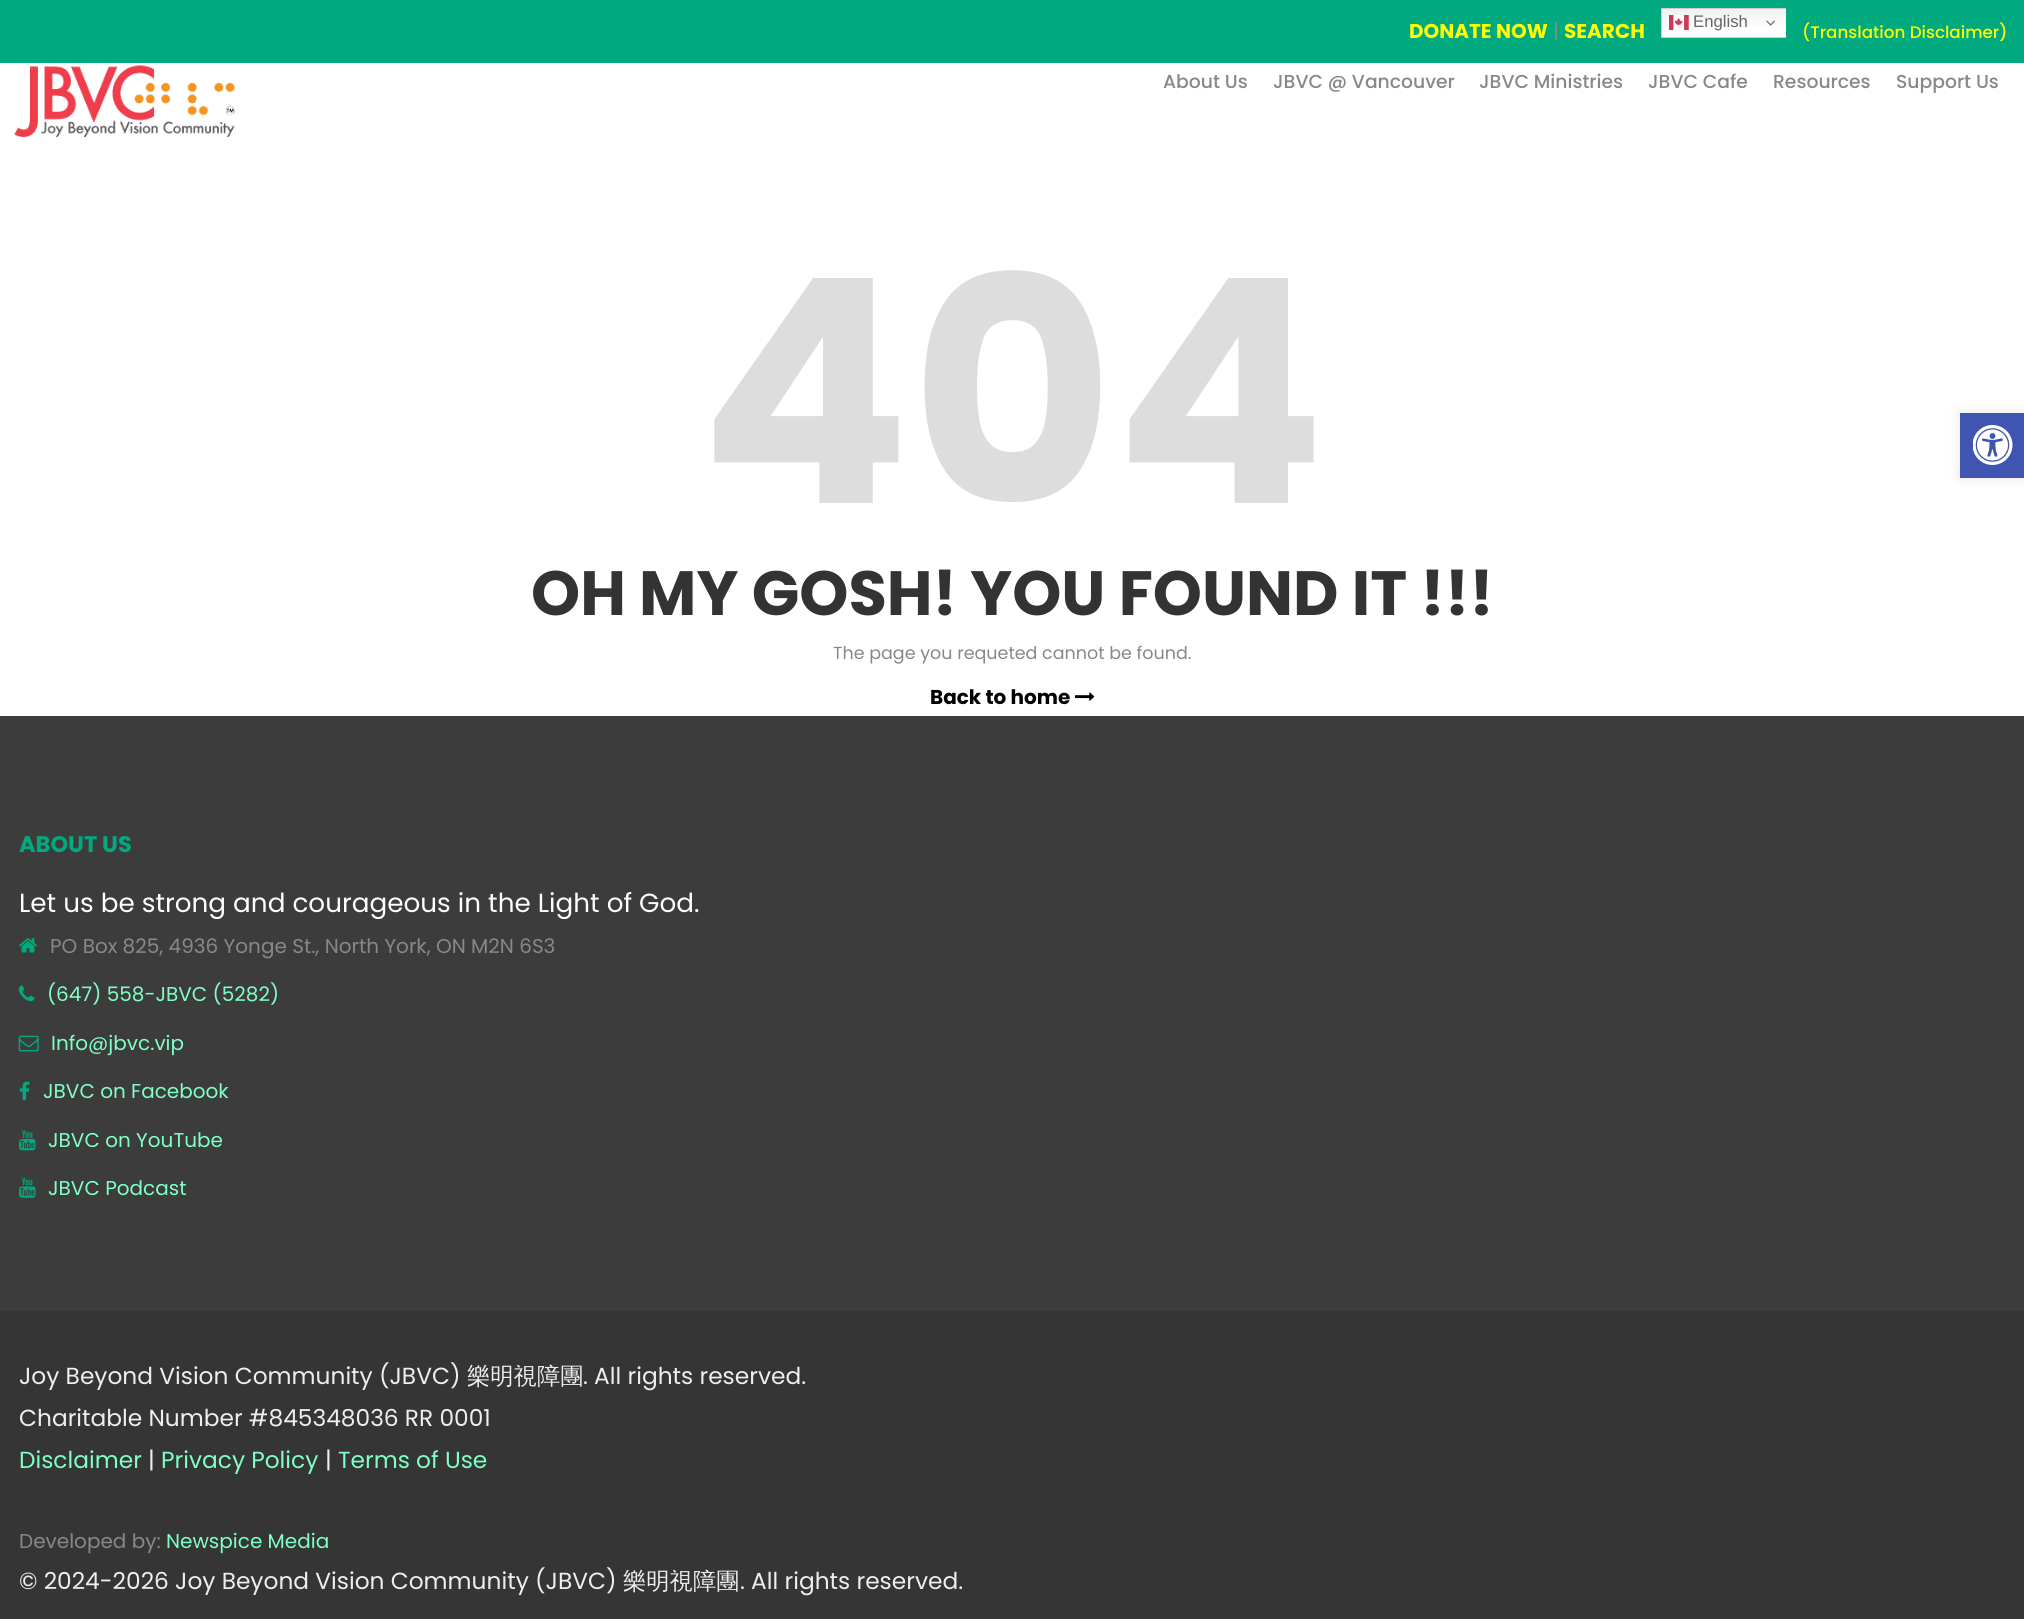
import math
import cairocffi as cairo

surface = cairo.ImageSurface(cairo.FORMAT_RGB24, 2024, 1619)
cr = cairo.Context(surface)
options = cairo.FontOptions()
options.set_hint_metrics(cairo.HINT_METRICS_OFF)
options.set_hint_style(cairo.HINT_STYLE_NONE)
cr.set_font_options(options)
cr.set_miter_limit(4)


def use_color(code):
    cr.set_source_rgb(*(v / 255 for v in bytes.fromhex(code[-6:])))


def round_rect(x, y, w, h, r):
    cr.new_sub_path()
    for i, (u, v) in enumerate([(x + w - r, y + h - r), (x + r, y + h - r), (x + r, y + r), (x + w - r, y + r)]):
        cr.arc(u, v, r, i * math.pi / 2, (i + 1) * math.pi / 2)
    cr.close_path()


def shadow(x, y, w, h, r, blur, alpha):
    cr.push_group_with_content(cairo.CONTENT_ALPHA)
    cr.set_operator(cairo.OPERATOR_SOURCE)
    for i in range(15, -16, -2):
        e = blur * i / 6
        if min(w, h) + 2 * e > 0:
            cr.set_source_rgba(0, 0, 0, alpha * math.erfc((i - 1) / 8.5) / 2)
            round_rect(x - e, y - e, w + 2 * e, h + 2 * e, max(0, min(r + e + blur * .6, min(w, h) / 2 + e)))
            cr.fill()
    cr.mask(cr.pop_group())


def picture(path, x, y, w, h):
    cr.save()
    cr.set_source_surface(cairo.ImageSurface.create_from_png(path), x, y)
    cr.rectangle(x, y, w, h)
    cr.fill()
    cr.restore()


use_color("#ffffff")
cr.paint()
use_color("#00a97e")
cr.rectangle(0, 0, 2024, 63)
cr.fill()
cr.select_font_face("Poppins", cairo.FONT_SLANT_NORMAL, cairo.FONT_WEIGHT_BOLD)
cr.set_font_size(20)
use_color("#ffff00")
cr.move_to(1409, 38)
cr.show_text("DONATE NOW")
cr.select_font_face("Poppins")
use_color("#888888")
cr.move_to(1553, 38)
cr.show_text("|")
cr.select_font_face("Poppins", cairo.FONT_SLANT_NORMAL, cairo.FONT_WEIGHT_BOLD)
use_color("#ffff00")
cr.move_to(1564, 38)
cr.show_text("SEARCH")
gradient = cairo.LinearGradient(1724, 7.5, 1724, 38)
gradient.add_color_stop_rgba(0, 0.937, 0.937, 0.937, 1)
gradient.add_color_stop_rgba(0.7, 1, 1, 1, 1)
cr.set_source(gradient)
cr.rectangle(1662, 9, 124, 28)
cr.fill()
cr.select_font_face("Poppins Medium")
cr.set_font_size(16.75)
use_color("#ffff00")
cr.move_to(1802, 38)
cr.show_text("(Translation Disclaimer)")
cr.save()
cr.rectangle(1661, 8, 125, 30)
cr.clip()
cr.rectangle(1661.5, 8.5, 203, 29)
use_color("#cccccc")
cr.set_line_width(1)
cr.stroke()
cr.restore()
picture("img1.png", 1669, 15, 20, 15)
cr.select_font_face("Liberation Sans")
use_color("#666666")
cr.move_to(1693, 27)
cr.show_text("English")
picture("img2.png", 1766, 20, 9, 6)
picture("img3.png", 14, 65, 221, 72)
cr.select_font_face("Poppins Medium")
cr.set_font_size(18.75)
use_color("#888888")
cr.move_to(1163, 88)
cr.show_text("About Us")
cr.move_to(1273, 88)
cr.show_text("JBVC @ Vancouver")
cr.move_to(1479, 88)
cr.show_text("JBVC Ministries")
cr.move_to(1648, 88)
cr.show_text("JBVC Cafe")
cr.move_to(1773, 88)
cr.show_text("Resources")
cr.move_to(1896, 88)
cr.show_text("Support Us")
cr.select_font_face("Poppins", cairo.FONT_SLANT_NORMAL, cairo.FONT_WEIGHT_BOLD)
cr.set_font_size(312.5)
use_color("#dddddd")
cr.move_to(699, 503)
cr.show_text("404")
cr.set_font_size(62.5)
use_color("#333333")
cr.move_to(531, 615)
cr.show_text("OH MY GOSH! YOU FOUND IT !!!")
cr.select_font_face("Poppins")
cr.set_font_size(17.5)
use_color("#888888")
cr.move_to(833, 659)
cr.show_text("The page you requeted cannot be found.")
cr.select_font_face("Poppins", cairo.FONT_SLANT_NORMAL, cairo.FONT_WEIGHT_BOLD)
cr.set_font_size(20)
use_color("#000000")
cr.move_to(930, 704)
cr.show_text("Back to home")
picture("img4.png", 1075, 692, 20, 9)
use_color("#3c3c3c")
cr.rectangle(0, 716, 2024, 595)
cr.fill()
cr.set_font_size(22.5)
use_color("#00a97e")
cr.move_to(19, 852)
cr.show_text("ABOUT US")
cr.select_font_face("Poppins")
cr.set_font_size(26.25)
use_color("#ffffff")
cr.move_to(19, 912)
cr.show_text("Let us be strong and courageous in the Light of God.")
picture("img5.png", 19, 938, 18, 15)
cr.set_font_size(20)
use_color("#888888")
cr.move_to(50, 953)
cr.show_text("PO Box 825, 4936 Yonge St., North York, ON M2N 6S3")
picture("img6.png", 18, 985, 17, 17)
use_color("#7fffc5")
cr.move_to(47, 1001)
cr.show_text("(647) 558-JBVC (5282)")
picture("img7.png", 18, 1035, 21, 17)
cr.move_to(51, 1050)
cr.show_text("Info@jbvc.vip")
picture("img8.png", 19, 1081, 11, 20)
cr.move_to(43, 1098)
cr.show_text("JBVC on Facebook")
picture("img9.png", 19, 1130, 17, 21)
cr.move_to(48, 1147)
cr.show_text("JBVC on YouTube")
picture("img10.png", 19, 1177, 17, 21)
cr.move_to(48, 1195)
cr.show_text("JBVC Podcast")
use_color("#353535")
cr.rectangle(0, 1311, 2024, 308)
cr.fill()
cr.set_font_size(23.3)
use_color("#eeeeee")
cr.move_to(19, 1384)
cr.show_text("Joy Beyond Vision Community (JBVC)")
cr.select_font_face("WenQuanYi Zen Hei Medium")
cr.move_to(467, 1384)
cr.show_text("樂明視障團")
cr.select_font_face("Poppins")
cr.move_to(583, 1384)
cr.show_text(". All rights reserved.")
cr.move_to(19, 1426)
cr.show_text("Charitable Number #845348036 RR 0001")
use_color("#7fffc5")
cr.move_to(19, 1468)
cr.show_text("Disclaimer")
use_color("#eeeeee")
cr.move_to(148, 1468)
cr.show_text("|")
use_color("#7fffc5")
cr.move_to(161, 1468)
cr.show_text("Privacy Policy")
use_color("#eeeeee")
cr.move_to(325, 1468)
cr.show_text("|")
use_color("#7fffc5")
cr.move_to(338, 1468)
cr.show_text("Terms of Use")
cr.set_font_size(20)
use_color("#888888")
cr.move_to(19, 1548)
cr.show_text("Developed by:")
use_color("#7fffc5")
cr.move_to(166, 1548)
cr.show_text("Newspice Media")
cr.set_font_size(23.3)
use_color("#eeeeee")
cr.move_to(19, 1589)
cr.show_text("© 2024-2026 Joy Beyond Vision Community (JBVC)")
cr.select_font_face("WenQuanYi Zen Hei Medium")
cr.move_to(623, 1589)
cr.show_text("樂明視障團")
cr.select_font_face("Poppins")
cr.move_to(740, 1589)
cr.show_text(". All rights reserved.")
use_color("#000000")
shadow(1960, 413, 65, 65, 0, 6, 0.1)
use_color("#4054b2")
cr.rectangle(1960, 413, 64, 65)
cr.fill()
picture("img11.png", 1973, 425, 40, 40)
surface.write_to_png("result.png")
